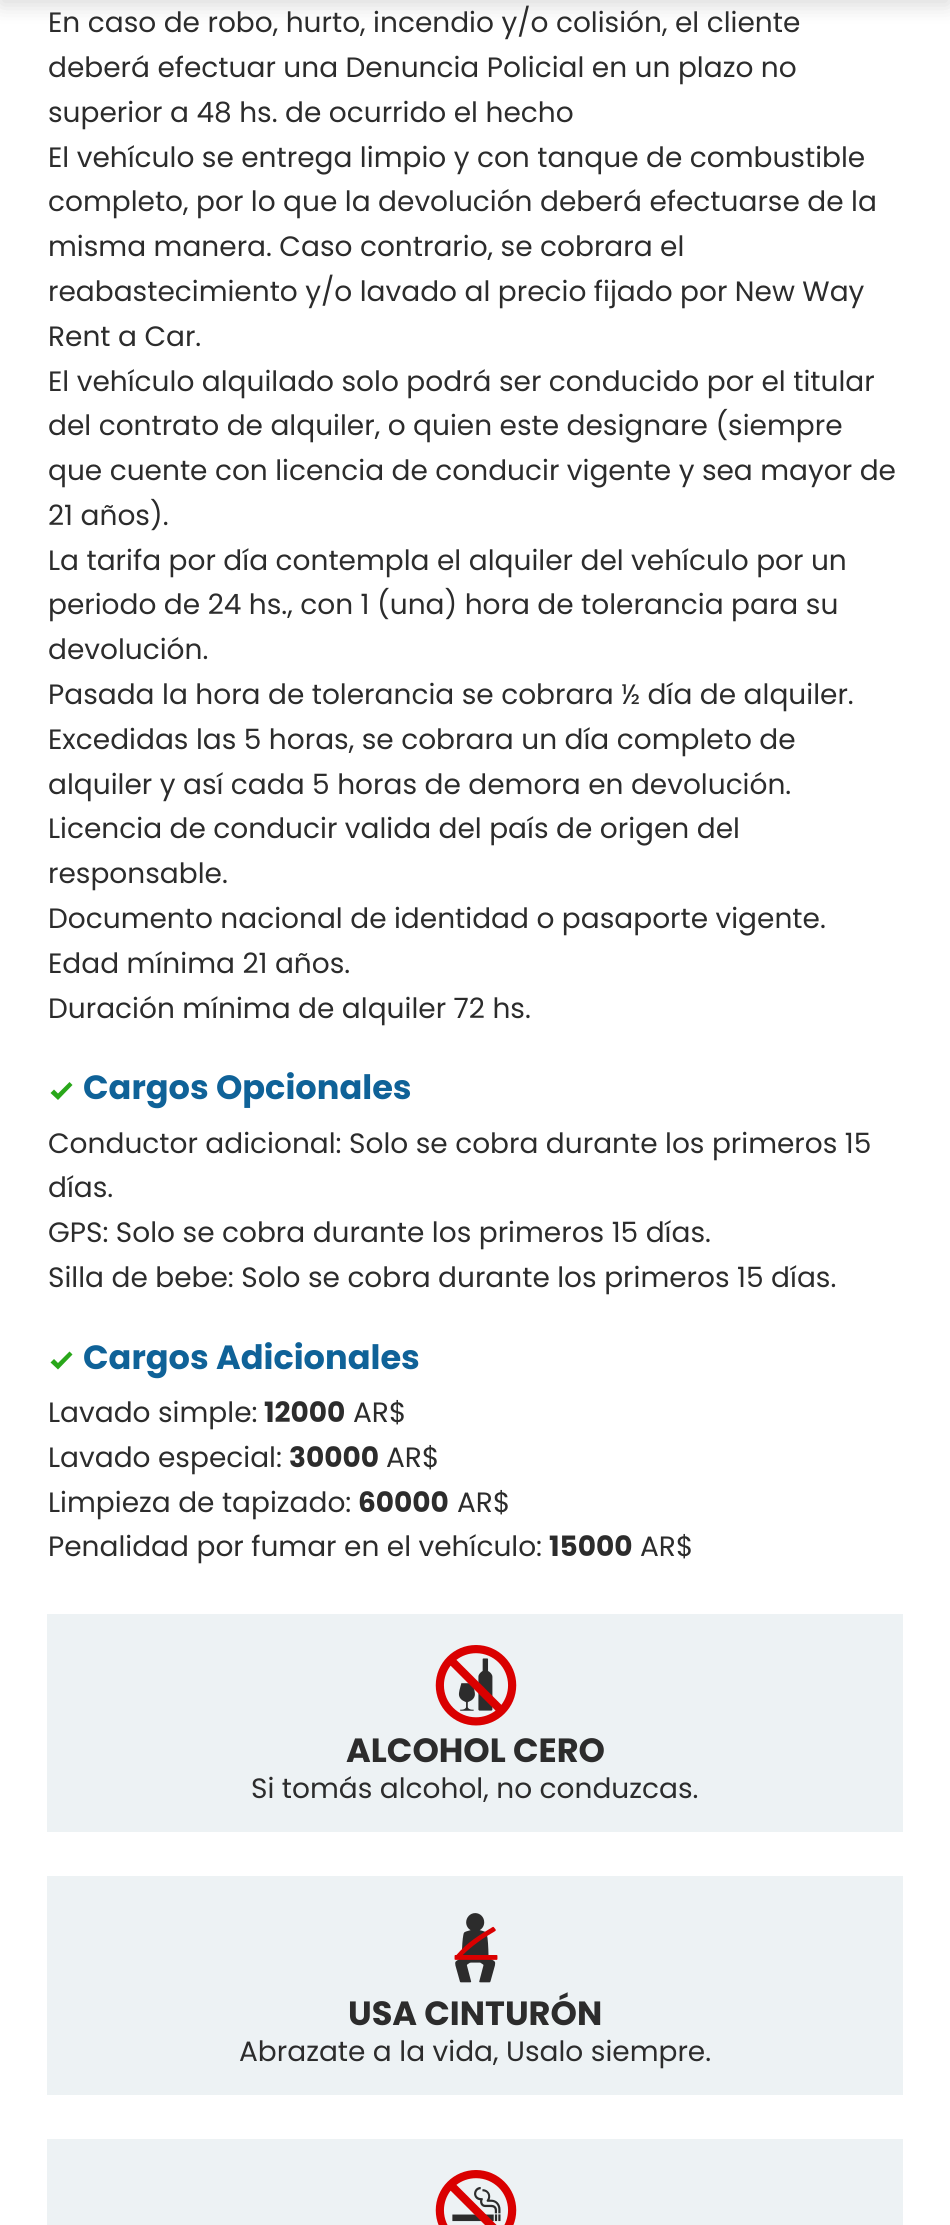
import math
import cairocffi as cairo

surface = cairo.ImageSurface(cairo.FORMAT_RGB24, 950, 2225)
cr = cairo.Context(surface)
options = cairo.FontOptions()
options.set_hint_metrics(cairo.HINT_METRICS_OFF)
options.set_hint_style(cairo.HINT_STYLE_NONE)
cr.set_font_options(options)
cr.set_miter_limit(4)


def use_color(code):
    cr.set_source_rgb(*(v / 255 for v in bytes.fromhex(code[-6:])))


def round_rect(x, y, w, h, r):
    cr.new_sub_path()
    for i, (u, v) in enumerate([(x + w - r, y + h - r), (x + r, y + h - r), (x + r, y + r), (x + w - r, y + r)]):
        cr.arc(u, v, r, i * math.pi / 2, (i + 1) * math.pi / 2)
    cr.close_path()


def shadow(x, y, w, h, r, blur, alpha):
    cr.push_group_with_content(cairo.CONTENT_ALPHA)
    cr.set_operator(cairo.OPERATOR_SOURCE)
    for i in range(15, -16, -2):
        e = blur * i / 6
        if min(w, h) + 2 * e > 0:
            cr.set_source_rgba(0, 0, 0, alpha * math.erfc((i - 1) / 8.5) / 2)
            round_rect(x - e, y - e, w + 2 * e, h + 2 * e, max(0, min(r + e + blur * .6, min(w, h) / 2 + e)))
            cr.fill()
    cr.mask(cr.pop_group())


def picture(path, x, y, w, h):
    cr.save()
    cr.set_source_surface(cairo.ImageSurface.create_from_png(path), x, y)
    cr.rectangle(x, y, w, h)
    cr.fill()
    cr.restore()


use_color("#ffffff")
cr.paint()
use_color("#000000")
shadow(0, -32, 950, 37, 0, 10.5, 0.15)
cr.select_font_face("Poppins")
cr.set_font_size(28)
use_color("#2c2c2c")
cr.move_to(48, 32)
cr.show_text("En caso de robo, hurto, incendio y/o colisión, el cliente")
cr.move_to(48, 77)
cr.show_text("deberá efectuar una Denuncia Policial en un plazo no")
cr.move_to(48, 122)
cr.show_text("superior a 48 hs. de ocurrido el hecho")
cr.move_to(48, 167)
cr.show_text("El vehículo se entrega limpio y con tanque de combustible")
cr.move_to(48, 211)
cr.show_text("completo, por lo que la devolución deberá efectuarse de la")
cr.move_to(48, 256)
cr.show_text("misma manera. Caso contrario, se cobrara el")
cr.move_to(48, 301)
cr.show_text("reabastecimiento y/o lavado al precio fijado por New Way")
cr.move_to(48, 346)
cr.show_text("Rent a Car.")
cr.move_to(48, 391)
cr.show_text("El vehículo alquilado solo podrá ser conducido por el titular")
cr.move_to(48, 435)
cr.show_text("del contrato de alquiler, o quien este designare (siempre")
cr.move_to(48, 480)
cr.show_text("que cuente con licencia de conducir vigente y sea mayor de")
cr.move_to(48, 525)
cr.show_text("21 años).")
cr.move_to(48, 570)
cr.show_text("La tarifa por día contempla el alquiler del vehículo por un")
cr.move_to(48, 614)
cr.show_text("periodo de 24 hs., con 1 (una) hora de tolerancia para su")
cr.move_to(48, 659)
cr.show_text("devolución.")
cr.move_to(48, 704)
cr.show_text("Pasada la hora de tolerancia se cobrara ½ día de alquiler.")
cr.move_to(48, 749)
cr.show_text("Excedidas las 5 horas, se cobrara un día completo de")
cr.move_to(48, 794)
cr.show_text("alquiler y así cada 5 horas de demora en devolución.")
cr.move_to(48, 838)
cr.show_text("Licencia de conducir valida del país de origen del")
cr.move_to(48, 883)
cr.show_text("responsable.")
cr.move_to(48, 928)
cr.show_text("Documento nacional de identidad o pasaporte vigente.")
cr.move_to(48, 973)
cr.show_text("Edad mínima 21 años.")
cr.move_to(48, 1018)
cr.show_text("Duración mínima de alquiler 72 hs.")
use_color("#29a71a")
cr.new_path()
cr.move_to(58, 1100)
cr.line_to(50.5, 1093)
cr.line_to(54, 1089.5)
cr.line_to(58, 1093.5)
cr.line_to(69.5, 1082)
cr.line_to(72.5, 1085)
cr.close_path()
cr.fill()
cr.select_font_face("Poppins", cairo.FONT_SLANT_NORMAL, cairo.FONT_WEIGHT_BOLD)
cr.set_font_size(33.6)
use_color("#0f6298")
cr.move_to(83, 1099)
cr.show_text("Cargos Opcionales")
cr.select_font_face("Poppins")
cr.set_font_size(28)
use_color("#2c2c2c")
cr.move_to(48, 1153)
cr.show_text("Conductor adicional: Solo se cobra durante los primeros 15")
cr.move_to(48, 1197)
cr.show_text("días.")
cr.move_to(48, 1242)
cr.show_text("GPS: Solo se cobra durante los primeros 15 días.")
cr.move_to(48, 1287)
cr.show_text("Silla de bebe: Solo se cobra durante los primeros 15 días.")
use_color("#29a71a")
cr.new_path()
cr.move_to(58, 1369.5)
cr.line_to(50.5, 1362.5)
cr.line_to(54, 1359)
cr.line_to(58, 1363)
cr.line_to(69.5, 1351.5)
cr.line_to(72.5, 1354.5)
cr.close_path()
cr.fill()
cr.select_font_face("Poppins", cairo.FONT_SLANT_NORMAL, cairo.FONT_WEIGHT_BOLD)
cr.set_font_size(33.6)
use_color("#0f6298")
cr.move_to(83, 1369)
cr.show_text("Cargos Adicionales")
cr.select_font_face("Poppins")
cr.set_font_size(28)
use_color("#2c2c2c")
cr.move_to(48, 1422)
cr.show_text("Lavado simple:")
cr.select_font_face("Poppins", cairo.FONT_SLANT_NORMAL, cairo.FONT_WEIGHT_BOLD)
cr.move_to(264, 1422)
cr.show_text("12000")
cr.select_font_face("Poppins")
cr.move_to(353, 1422)
cr.show_text("AR$")
cr.move_to(48, 1467)
cr.show_text("Lavado especial:")
cr.select_font_face("Poppins", cairo.FONT_SLANT_NORMAL, cairo.FONT_WEIGHT_BOLD)
cr.move_to(289, 1467)
cr.show_text("30000")
cr.select_font_face("Poppins")
cr.move_to(386, 1467)
cr.show_text("AR$")
cr.move_to(48, 1512)
cr.show_text("Limpieza de tapizado:")
cr.select_font_face("Poppins", cairo.FONT_SLANT_NORMAL, cairo.FONT_WEIGHT_BOLD)
cr.move_to(358, 1512)
cr.show_text("60000")
cr.select_font_face("Poppins")
cr.move_to(457, 1512)
cr.show_text("AR$")
cr.move_to(48, 1556)
cr.show_text("Penalidad por fumar en el vehículo:")
cr.select_font_face("Poppins", cairo.FONT_SLANT_NORMAL, cairo.FONT_WEIGHT_BOLD)
cr.move_to(549, 1556)
cr.show_text("15000")
cr.select_font_face("Poppins")
cr.move_to(640, 1556)
cr.show_text("AR$")
use_color("#edf2f4")
cr.rectangle(47, 1614, 856, 218)
cr.fill()
picture("img1.png", 435, 1645, 82, 81)
cr.select_font_face("Poppins", cairo.FONT_SLANT_NORMAL, cairo.FONT_WEIGHT_BOLD)
cr.set_font_size(33.6)
use_color("#2c2c2c")
cr.move_to(346, 1762)
cr.show_text("ALCOHOL CERO")
cr.select_font_face("Poppins")
cr.set_font_size(28)
cr.move_to(251, 1798)
cr.show_text("Si tomás alcohol, no conduzcas.")
use_color("#edf2f4")
cr.rectangle(47, 1876, 856, 219)
cr.fill()
picture("img2.png", 454, 1913, 44, 70)
cr.select_font_face("Poppins", cairo.FONT_SLANT_NORMAL, cairo.FONT_WEIGHT_BOLD)
cr.set_font_size(33.6)
use_color("#2c2c2c")
cr.move_to(348, 2025)
cr.show_text("USA CINTURÓN")
cr.select_font_face("Poppins")
cr.set_font_size(28)
cr.move_to(239, 2061)
cr.show_text("Abrazate a la vida, Usalo siempre.")
use_color("#edf2f4")
cr.rectangle(47, 2139, 856, 86)
cr.fill()
picture("img3.png", 435, 2170, 82, 55)
surface.write_to_png("result.png")
